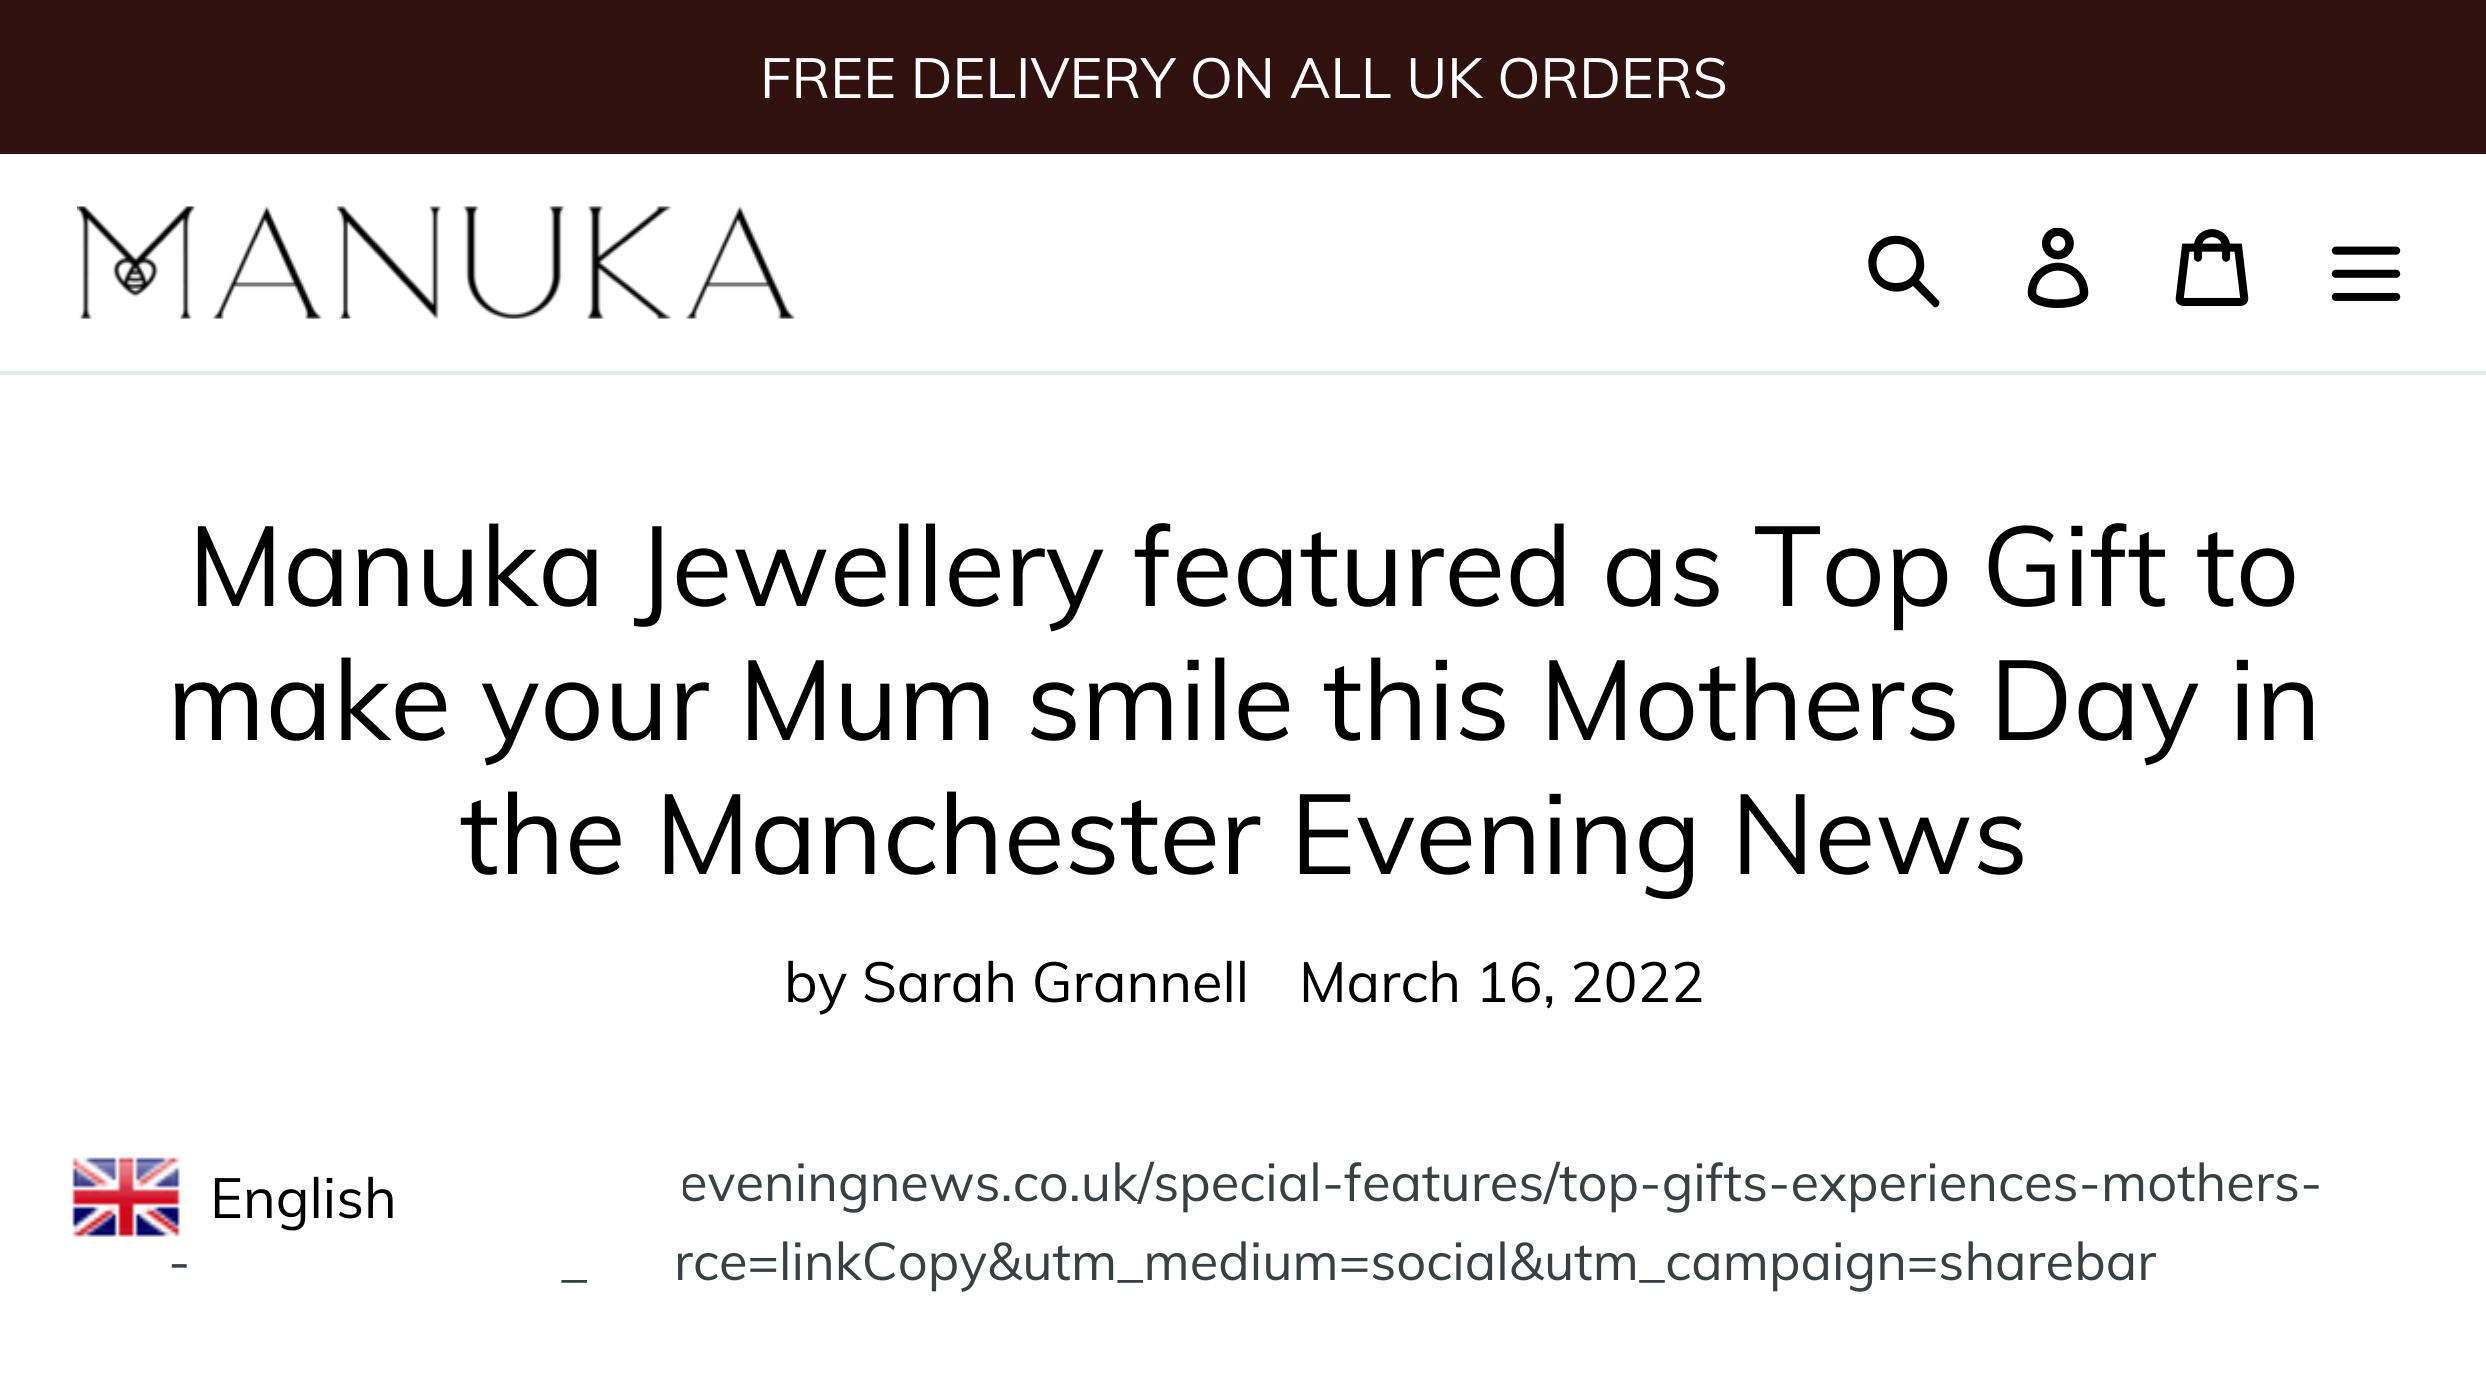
import math
import cairocffi as cairo

surface = cairo.ImageSurface(cairo.FORMAT_RGB24, 2486, 1399)
cr = cairo.Context(surface)
options = cairo.FontOptions()
options.set_hint_metrics(cairo.HINT_METRICS_OFF)
options.set_hint_style(cairo.HINT_STYLE_NONE)
cr.set_font_options(options)
cr.set_miter_limit(4)


def use_color(code):
    cr.set_source_rgb(*(v / 255 for v in bytes.fromhex(code[-6:])))


def round_rect(x, y, w, h, r):
    cr.new_sub_path()
    for i, (u, v) in enumerate([(x + w - r, y + h - r), (x + r, y + h - r), (x + r, y + r), (x + w - r, y + r)]):
        cr.arc(u, v, r, i * math.pi / 2, (i + 1) * math.pi / 2)
    cr.close_path()


def picture(path, x, y, w, h):
    cr.save()
    cr.set_source_surface(cairo.ImageSurface.create_from_png(path), x, y)
    cr.rectangle(x, y, w, h)
    cr.fill()
    cr.restore()


use_color("#ffffff")
cr.paint()
use_color("#30110d")
cr.rectangle(0, 0, 2486, 154)
cr.fill()
cr.select_font_face("Muli")
cr.set_font_size(56)
use_color("#ffffff")
cr.move_to(760, 98)
cr.show_text("FREE DELIVERY ON ALL UK ORDERS")
use_color("#e8e9eb")
cr.rectangle(0, 371, 2486, 4)
cr.fill()
picture("img1.png", 77, 206, 718, 113)
use_color("#000000")
cr.new_path()
cr.move_to(1938, 300)
cr.line_to(1919, 280)
cr.curve_to(1923, 275, 1925, 268, 1924, 262)
cr.curve_to(1922, 232, 1881, 226, 1870, 253)
cr.curve_to(1867, 261, 1868, 271, 1873, 279)
cr.curve_to(1882, 292, 1900, 296, 1913, 286)
cr.line_to(1934, 307)
cr.curve_to(1937, 309, 1942, 303, 1938, 300)
cr.close_path()
cr.move_to(1896, 283)
cr.curve_to(1870, 283, 1870, 244, 1896, 244)
cr.curve_to(1923, 244, 1923, 283, 1896, 283)
cr.close_path()
cr.fill()
picture("img2.png", 2027, 228, 62, 80)
picture("img3.png", 2175, 229, 74, 77)
picture("img4.png", 2331, 246, 70, 55)
cr.set_font_size(112)
cr.move_to(188, 606)
cr.show_text("Manuka Jewellery featured as Top Gift to")
cr.move_to(167, 740)
cr.show_text("make your Mum smile this Mothers Day in")
cr.move_to(460, 874)
cr.show_text("the Manchester Evening News")
cr.set_font_size(56)
cr.move_to(784, 1002)
cr.show_text("by Sarah Grannell")
cr.move_to(1299, 1002)
cr.show_text("March 16, 2022")
cr.set_font_size(52.5)
use_color("#3b3f42")
cr.move_to(679, 1201)
cr.show_text("eveningnews.co.uk/special-features/top-gifts-experiences-mothers-")
cr.move_to(168, 1280)
cr.show_text("-")
cr.move_to(674, 1280)
cr.show_text("rce=linkCopy&utm_medium=social&utm_campaign=sharebar")
cr.move_to(561, 1280)
cr.show_text("_")
use_color("#ffffff")
round_rect(53, 1134, 630, 126, 18)
cr.fill()
picture("img5.png", 72, 1157, 108, 80)
cr.set_font_size(56)
use_color("#000000")
cr.move_to(210, 1218)
cr.show_text("English")
surface.write_to_png("result.png")
